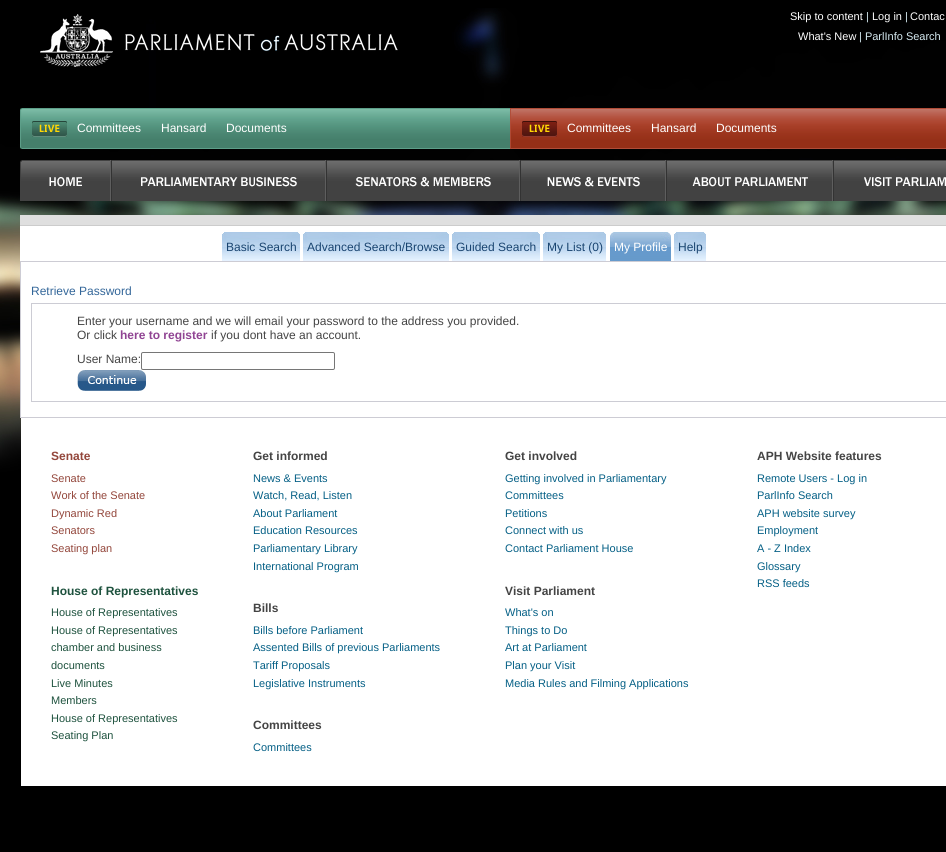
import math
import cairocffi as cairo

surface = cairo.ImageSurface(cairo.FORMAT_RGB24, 946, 852)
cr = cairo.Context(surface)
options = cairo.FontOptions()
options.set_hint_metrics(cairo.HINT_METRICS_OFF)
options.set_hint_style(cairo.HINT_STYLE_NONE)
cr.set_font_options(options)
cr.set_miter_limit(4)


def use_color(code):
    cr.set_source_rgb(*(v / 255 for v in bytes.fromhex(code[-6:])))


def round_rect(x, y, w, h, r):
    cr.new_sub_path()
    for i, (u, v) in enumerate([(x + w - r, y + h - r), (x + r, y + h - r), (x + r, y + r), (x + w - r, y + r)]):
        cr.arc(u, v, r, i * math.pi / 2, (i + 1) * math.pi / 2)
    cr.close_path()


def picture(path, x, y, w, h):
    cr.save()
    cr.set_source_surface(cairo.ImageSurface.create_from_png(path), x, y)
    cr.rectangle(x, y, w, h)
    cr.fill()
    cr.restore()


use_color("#000000")
cr.paint()
picture("img1.png", 0, 8, 946, 482)
picture("img2.png", 40, 14, 358, 53)
cr.select_font_face("Liberation Sans")
cr.set_font_size(11)
use_color("#ffffff")
cr.move_to(790, 20)
cr.show_text("Skip to content")
use_color("#d6eaf1")
cr.move_to(866, 20)
cr.show_text("|")
use_color("#ffffff")
cr.move_to(872, 20)
cr.show_text("Log in")
use_color("#d6eaf1")
cr.move_to(905, 20)
cr.show_text("|")
use_color("#ffffff")
cr.move_to(910, 20)
cr.show_text("Contac")
cr.move_to(798, 40)
cr.show_text("What's New")
use_color("#d6eaf1")
cr.move_to(859, 40)
cr.show_text("| ParlInfo Search")
picture("img3.png", 20, 108, 490, 41)
picture("img4.png", 32, 121, 35, 16)
cr.set_font_size(12)
use_color("#ffffff")
cr.move_to(77, 132)
cr.show_text("Committees")
cr.move_to(161, 132)
cr.show_text("Hansard")
cr.move_to(226, 132)
cr.show_text("Documents")
picture("img5.png", 510, 108, 436, 41)
picture("img6.png", 510, 109, 1, 39)
picture("img7.png", 522, 121, 35, 16)
cr.move_to(567, 132)
cr.show_text("Committees")
cr.move_to(651, 132)
cr.show_text("Hansard")
cr.move_to(716, 132)
cr.show_text("Documents")
picture("img8.png", 20, 160, 90, 41)
use_color("#5e5e5e")
cr.rectangle(110, 160, 1, 41)
cr.fill()
picture("img9.png", 49, 177, 33, 10)
picture("img10.png", 112, 160, 213, 41)
cr.rectangle(325, 160, 1, 41)
cr.fill()
use_color("#333333")
cr.rectangle(111, 160, 1, 41)
cr.fill()
picture("img11.png", 141, 177, 156, 10)
picture("img12.png", 327, 160, 192, 41)
use_color("#5e5e5e")
cr.rectangle(519, 160, 1, 41)
cr.fill()
use_color("#333333")
cr.rectangle(326, 160, 1, 41)
cr.fill()
picture("img13.png", 355, 177, 136, 10)
picture("img14.png", 521, 160, 144, 41)
use_color("#5e5e5e")
cr.rectangle(665, 160, 1, 41)
cr.fill()
use_color("#333333")
cr.rectangle(520, 160, 1, 41)
cr.fill()
picture("img15.png", 547, 177, 93, 10)
picture("img16.png", 667, 160, 165, 41)
use_color("#5e5e5e")
cr.rectangle(832, 160, 1, 41)
cr.fill()
use_color("#333333")
cr.rectangle(666, 160, 1, 41)
cr.fill()
picture("img17.png", 692, 177, 116, 10)
picture("img18.png", 834, 160, 112, 41)
cr.rectangle(833, 160, 1, 41)
cr.fill()
picture("img19.png", 864, 177, 82, 10)
use_color("#dfdfdf")
cr.rectangle(20, 215, 926, 10)
cr.fill()
use_color("#ffffff")
cr.rectangle(20, 226, 926, 35)
cr.fill()
use_color("#cccccc")
cr.rectangle(20, 225, 926, 1)
cr.fill()
picture("img20.png", 222, 232, 4, 29)
picture("img21.png", 226, 232, 74, 29)
use_color("#194470")
cr.move_to(226, 251)
cr.show_text("Basic Search")
picture("img20.png", 303, 232, 4, 29)
picture("img22.png", 307, 232, 142, 29)
cr.move_to(307, 251)
cr.show_text("Advanced Search/Browse")
picture("img20.png", 452, 232, 4, 29)
picture("img23.png", 456, 232, 84, 29)
cr.move_to(456, 251)
cr.show_text("Guided Search")
picture("img20.png", 543, 232, 4, 29)
picture("img24.png", 547, 232, 59, 29)
cr.move_to(547, 251)
cr.show_text("My List (0)")
picture("img25.png", 610, 232, 4, 29)
picture("img26.png", 614, 232, 57, 29)
use_color("#ffffff")
cr.move_to(614, 251)
cr.show_text("My Profile")
picture("img20.png", 674, 232, 4, 29)
picture("img27.png", 678, 232, 28, 29)
use_color("#194470")
cr.move_to(678, 251)
cr.show_text("Help")
use_color("#ffffff")
cr.rectangle(20.5, 261.5, 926, 156)
cr.fill_preserve()
use_color("#cdccd4")
cr.set_line_width(1)
cr.stroke()
use_color("#336699")
cr.move_to(31, 295)
cr.show_text("Retrieve Password")
cr.rectangle(31.5, 303.5, 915, 98)
use_color("#ccccd4")
cr.stroke()
use_color("#444444")
cr.move_to(77, 325)
cr.show_text("Enter your username and we will email your password to the address you provided.")
cr.move_to(77, 339)
cr.show_text("Or click")
cr.select_font_face("Liberation Sans", cairo.FONT_SLANT_NORMAL, cairo.FONT_WEIGHT_BOLD)
use_color("#904493")
cr.move_to(120, 339)
cr.show_text("here to register")
cr.select_font_face("Liberation Sans")
use_color("#444444")
cr.move_to(211, 339)
cr.show_text("if you dont have an account.")
cr.move_to(77, 363)
cr.show_text("User Name:")
round_rect(141.5, 352.5, 193, 17, 1.5)
use_color("#767676")
cr.stroke()
picture("img28.png", 77, 370, 69, 21)
use_color("#ffffff")
cr.rectangle(21, 418, 925, 368)
cr.fill()
cr.select_font_face("Liberation Sans", cairo.FONT_SLANT_NORMAL, cairo.FONT_WEIGHT_BOLD)
use_color("#93463b")
cr.move_to(51, 460)
cr.show_text("Senate")
cr.select_font_face("Liberation Sans")
cr.set_font_size(11)
cr.move_to(51, 482)
cr.show_text("Senate")
cr.move_to(51, 499)
cr.show_text("Work of the Senate")
cr.move_to(51, 517)
cr.show_text("Dynamic Red")
cr.move_to(51, 534)
cr.show_text("Senators")
cr.move_to(51, 552)
cr.show_text("Seating plan")
cr.select_font_face("Liberation Sans", cairo.FONT_SLANT_NORMAL, cairo.FONT_WEIGHT_BOLD)
cr.set_font_size(12)
use_color("#1e523e")
cr.move_to(51, 595)
cr.show_text("House of Representatives")
cr.select_font_face("Liberation Sans")
cr.set_font_size(11)
cr.move_to(51, 616)
cr.show_text("House of Representatives")
cr.move_to(51, 634)
cr.show_text("House of Representatives")
cr.move_to(51, 651)
cr.show_text("chamber and business")
cr.move_to(51, 669)
cr.show_text("documents")
cr.move_to(51, 687)
cr.show_text("Live Minutes")
cr.move_to(51, 704)
cr.show_text("Members")
cr.move_to(51, 722)
cr.show_text("House of Representatives")
cr.move_to(51, 739)
cr.show_text("Seating Plan")
cr.select_font_face("Liberation Sans", cairo.FONT_SLANT_NORMAL, cairo.FONT_WEIGHT_BOLD)
cr.set_font_size(12)
use_color("#444444")
cr.move_to(253, 460)
cr.show_text("Get informed")
cr.select_font_face("Liberation Sans")
cr.set_font_size(11)
use_color("#045f85")
cr.move_to(253, 482)
cr.show_text("News & Events")
cr.move_to(253, 499)
cr.show_text("Watch, Read, Listen")
cr.move_to(253, 517)
cr.show_text("About Parliament")
cr.move_to(253, 534)
cr.show_text("Education Resources")
cr.move_to(253, 552)
cr.show_text("Parliamentary Library")
cr.move_to(253, 570)
cr.show_text("International Program")
cr.select_font_face("Liberation Sans", cairo.FONT_SLANT_NORMAL, cairo.FONT_WEIGHT_BOLD)
cr.set_font_size(12)
use_color("#444444")
cr.move_to(253, 612)
cr.show_text("Bills")
cr.select_font_face("Liberation Sans")
cr.set_font_size(11)
use_color("#045f85")
cr.move_to(253, 634)
cr.show_text("Bills before Parliament")
cr.move_to(253, 651)
cr.show_text("Assented Bills of previous Parliaments")
cr.move_to(253, 669)
cr.show_text("Tariff Proposals")
cr.move_to(253, 687)
cr.show_text("Legislative Instruments")
cr.select_font_face("Liberation Sans", cairo.FONT_SLANT_NORMAL, cairo.FONT_WEIGHT_BOLD)
cr.set_font_size(12)
use_color("#444444")
cr.move_to(253, 729)
cr.show_text("Committees")
cr.select_font_face("Liberation Sans")
cr.set_font_size(11)
use_color("#045f85")
cr.move_to(253, 751)
cr.show_text("Committees")
cr.select_font_face("Liberation Sans", cairo.FONT_SLANT_NORMAL, cairo.FONT_WEIGHT_BOLD)
cr.set_font_size(12)
use_color("#444444")
cr.move_to(505, 460)
cr.show_text("Get involved")
cr.select_font_face("Liberation Sans")
cr.set_font_size(11)
use_color("#045f85")
cr.move_to(505, 482)
cr.show_text("Getting involved in Parliamentary")
cr.move_to(505, 499)
cr.show_text("Committees")
cr.move_to(505, 517)
cr.show_text("Petitions")
cr.move_to(505, 534)
cr.show_text("Connect with us")
cr.move_to(505, 552)
cr.show_text("Contact Parliament House")
cr.select_font_face("Liberation Sans", cairo.FONT_SLANT_NORMAL, cairo.FONT_WEIGHT_BOLD)
cr.set_font_size(12)
use_color("#444444")
cr.move_to(505, 595)
cr.show_text("Visit Parliament")
cr.select_font_face("Liberation Sans")
cr.set_font_size(11)
use_color("#045f85")
cr.move_to(505, 616)
cr.show_text("What's on")
cr.move_to(505, 634)
cr.show_text("Things to Do")
cr.move_to(505, 651)
cr.show_text("Art at Parliament")
cr.move_to(505, 669)
cr.show_text("Plan your Visit")
cr.move_to(505, 687)
cr.show_text("Media Rules and Filming Applications")
cr.select_font_face("Liberation Sans", cairo.FONT_SLANT_NORMAL, cairo.FONT_WEIGHT_BOLD)
cr.set_font_size(12)
use_color("#444444")
cr.move_to(757, 460)
cr.show_text("APH Website features")
cr.select_font_face("Liberation Sans")
cr.set_font_size(11)
use_color("#045f85")
cr.move_to(757, 482)
cr.show_text("Remote Users - Log in")
cr.move_to(757, 499)
cr.show_text("ParlInfo Search")
cr.move_to(757, 517)
cr.show_text("APH website survey")
cr.move_to(757, 534)
cr.show_text("Employment")
cr.move_to(757, 552)
cr.show_text("A - Z Index")
cr.move_to(757, 570)
cr.show_text("Glossary")
cr.move_to(757, 587)
cr.show_text("RSS feeds")
surface.write_to_png("result.png")
